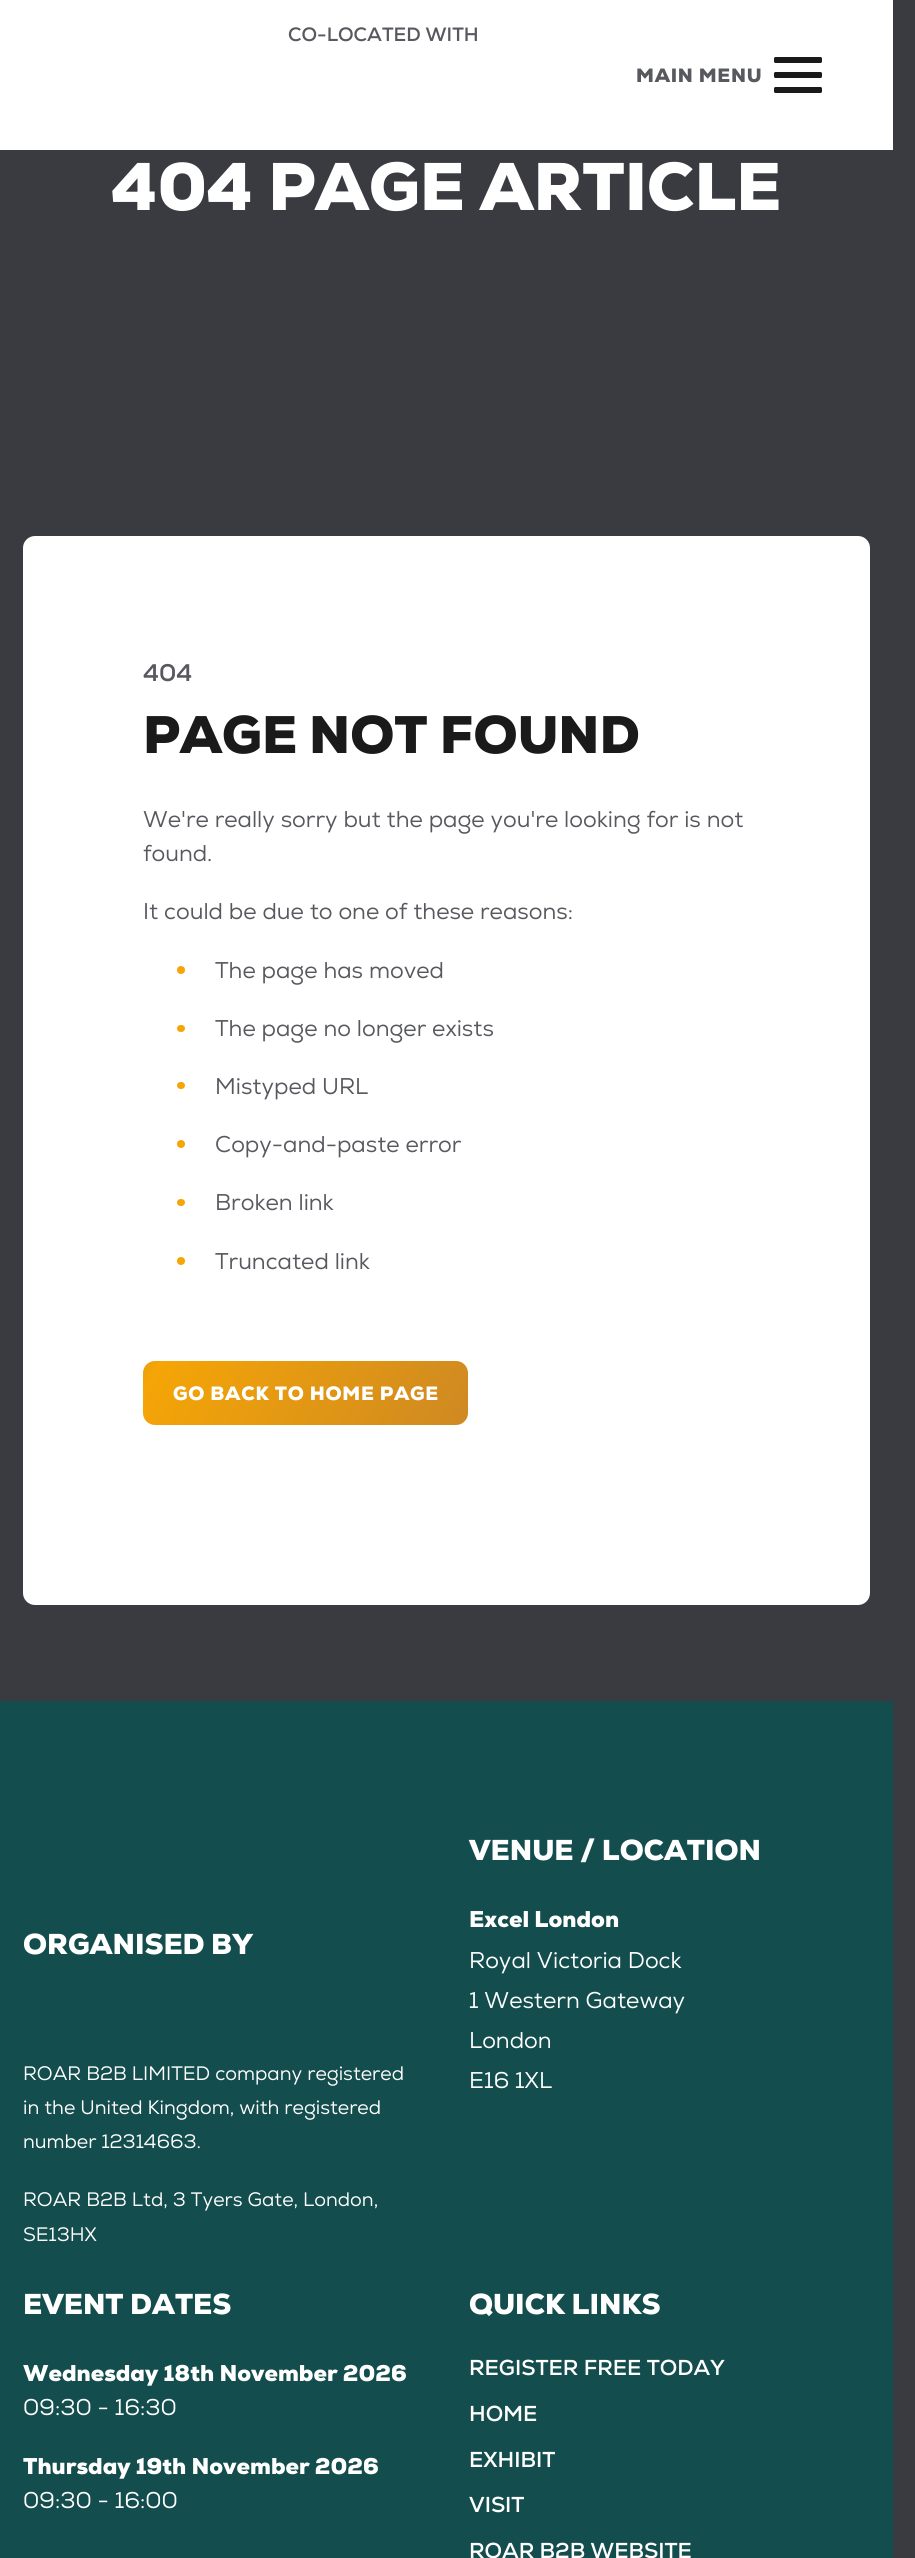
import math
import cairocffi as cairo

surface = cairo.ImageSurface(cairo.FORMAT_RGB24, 915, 2558)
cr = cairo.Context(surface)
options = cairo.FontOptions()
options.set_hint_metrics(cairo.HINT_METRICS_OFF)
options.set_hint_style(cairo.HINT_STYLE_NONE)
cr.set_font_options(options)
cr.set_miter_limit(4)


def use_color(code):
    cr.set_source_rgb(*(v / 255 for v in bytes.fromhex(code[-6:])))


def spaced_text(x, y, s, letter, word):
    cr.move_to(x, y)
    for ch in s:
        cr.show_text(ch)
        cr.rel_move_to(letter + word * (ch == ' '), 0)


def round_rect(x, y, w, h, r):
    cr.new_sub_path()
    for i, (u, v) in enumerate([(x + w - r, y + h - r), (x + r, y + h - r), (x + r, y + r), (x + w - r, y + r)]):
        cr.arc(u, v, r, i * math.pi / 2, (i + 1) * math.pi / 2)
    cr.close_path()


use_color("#3a3b40")
cr.paint()
use_color("#ffffff")
cr.rectangle(0, 0, 893, 150)
cr.fill()
cr.select_font_face("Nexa", cairo.FONT_SLANT_NORMAL, cairo.FONT_WEIGHT_BOLD)
cr.set_font_size(19.25)
use_color("#58595f")
cr.move_to(288, 41)
cr.show_text("CO-LOCATED WITH")
cr.select_font_face("Nexa Black")
spaced_text(636, 82, "MAIN MENU", 0.75, 0)
use_color("#1a1a1a")
round_rect(774, 72, 48, 6, 1.5)
cr.fill()
round_rect(774, 57, 48, 6, 1.5)
cr.fill()
round_rect(774, 87, 48, 6, 1.5)
cr.fill()
cr.set_font_size(67.25)
use_color("#ffffff")
cr.move_to(111, 210)
cr.show_text("404 PAGE ARTICLE")
round_rect(23, 536, 847, 1069, 12)
cr.fill()
cr.select_font_face("Nexa", cairo.FONT_SLANT_NORMAL, cairo.FONT_WEIGHT_BOLD)
cr.set_font_size(24)
use_color("#58595f")
cr.move_to(143, 681)
cr.show_text("404")
cr.select_font_face("Nexa Black")
cr.set_font_size(52.75)
use_color("#1a1a1a")
cr.move_to(143, 753)
cr.show_text("PAGE NOT FOUND")
cr.select_font_face("Nexa")
cr.set_font_size(22.8)
use_color("#58595f")
cr.move_to(143, 827)
cr.show_text("We're really sorry but the page you're looking for is not")
cr.move_to(143, 861)
cr.show_text("found.")
cr.move_to(143, 919)
cr.show_text("It could be due to one of these reasons:")
use_color("#f5a506")
cr.new_path()
cr.arc(181, 970, 4, 0, 2 * math.pi)
cr.fill()
use_color("#58595f")
cr.move_to(215, 978)
cr.show_text("The page has moved")
use_color("#f5a506")
round_rect(177, 1025, 8, 7, 3.5)
cr.fill()
use_color("#58595f")
cr.move_to(215, 1036)
cr.show_text("The page no longer exists")
use_color("#f5a506")
round_rect(177, 1082, 8, 7, 3.5)
cr.fill()
use_color("#58595f")
cr.move_to(215, 1094)
cr.show_text("Mistyped URL")
use_color("#f5a506")
cr.new_path()
cr.arc(181, 1144, 4, 0, 2 * math.pi)
cr.fill()
use_color("#58595f")
cr.move_to(215, 1152)
cr.show_text("Copy-and-paste error")
use_color("#f5a506")
round_rect(177, 1199, 8, 7, 3.5)
cr.fill()
use_color("#58595f")
cr.move_to(215, 1210)
cr.show_text("Broken link")
use_color("#f5a506")
cr.new_path()
cr.arc(181, 1261, 4, 0, 2 * math.pi)
cr.fill()
use_color("#58595f")
cr.move_to(215, 1269)
cr.show_text("Truncated link")
gradient = cairo.LinearGradient(-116, 1244, 401, 1542)
gradient.add_color_stop_rgba(0, 0.078, 0.302, 0.302, 1)
gradient.add_color_stop_rgba(0.5, 0.961, 0.647, 0.024, 1)
gradient.add_color_stop_rgba(1, 0.808, 0.537, 0.133, 1)
cr.set_source(gradient)
round_rect(143, 1361, 325, 64, 12)
cr.fill()
cr.select_font_face("Nexa Black")
cr.set_font_size(19.25)
use_color("#ffffff")
spaced_text(173, 1400, "GO BACK TO HOME PAGE", 0.75, 0)
use_color("#144d4d")
cr.rectangle(0, 1701, 893, 857)
cr.fill()
cr.set_font_size(28.75)
use_color("#ffffff")
cr.move_to(23, 1954)
cr.show_text("ORGANISED BY")
cr.select_font_face("Nexa")
cr.set_font_size(19.5)
cr.move_to(23, 2080)
cr.show_text("ROAR B2B LIMITED company registered")
cr.move_to(23, 2114)
cr.show_text("in the United Kingdom, with registered")
cr.move_to(23, 2148)
cr.show_text("number 12314663.")
cr.move_to(23, 2206)
cr.show_text("ROAR B2B Ltd, 3 Tyers Gate, London,")
cr.move_to(23, 2241)
cr.show_text("SE13HX")
cr.select_font_face("Nexa Black")
cr.set_font_size(28.75)
cr.move_to(469, 1860)
cr.show_text("VENUE / LOCATION")
cr.set_font_size(22.8)
cr.move_to(469, 1927)
cr.show_text("Excel London")
cr.select_font_face("Nexa")
cr.move_to(469, 1968)
cr.show_text("Royal Victoria Dock")
cr.move_to(469, 2008)
cr.show_text("1 Western Gateway")
cr.move_to(469, 2048)
cr.show_text("London")
cr.move_to(469, 2088)
cr.show_text("E16 1XL")
cr.select_font_face("Nexa Black")
cr.set_font_size(28.75)
cr.move_to(23, 2314)
cr.show_text("EVENT DATES")
cr.set_font_size(22.8)
cr.move_to(23, 2381)
cr.show_text("Wednesday 18th November 2026")
cr.select_font_face("Nexa")
cr.move_to(23, 2415)
cr.show_text("09:30 - 16:30")
cr.select_font_face("Nexa Black")
cr.move_to(23, 2474)
cr.show_text("Thursday 19th November 2026")
cr.select_font_face("Nexa")
cr.move_to(23, 2508)
cr.show_text("09:30 - 16:00")
cr.select_font_face("Nexa Black")
cr.set_font_size(28.75)
cr.move_to(469, 2314)
cr.show_text("QUICK LINKS")
cr.select_font_face("Nexa", cairo.FONT_SLANT_NORMAL, cairo.FONT_WEIGHT_BOLD)
cr.set_font_size(21.6)
cr.move_to(469, 2375)
cr.show_text("REGISTER FREE TODAY")
cr.move_to(469, 2421)
cr.show_text("HOME")
cr.move_to(469, 2467)
cr.show_text("EXHIBIT")
cr.move_to(469, 2512)
cr.show_text("VISIT")
cr.move_to(469, 2558)
cr.show_text("ROAR B2B WEBSITE")
surface.write_to_png("result.png")
